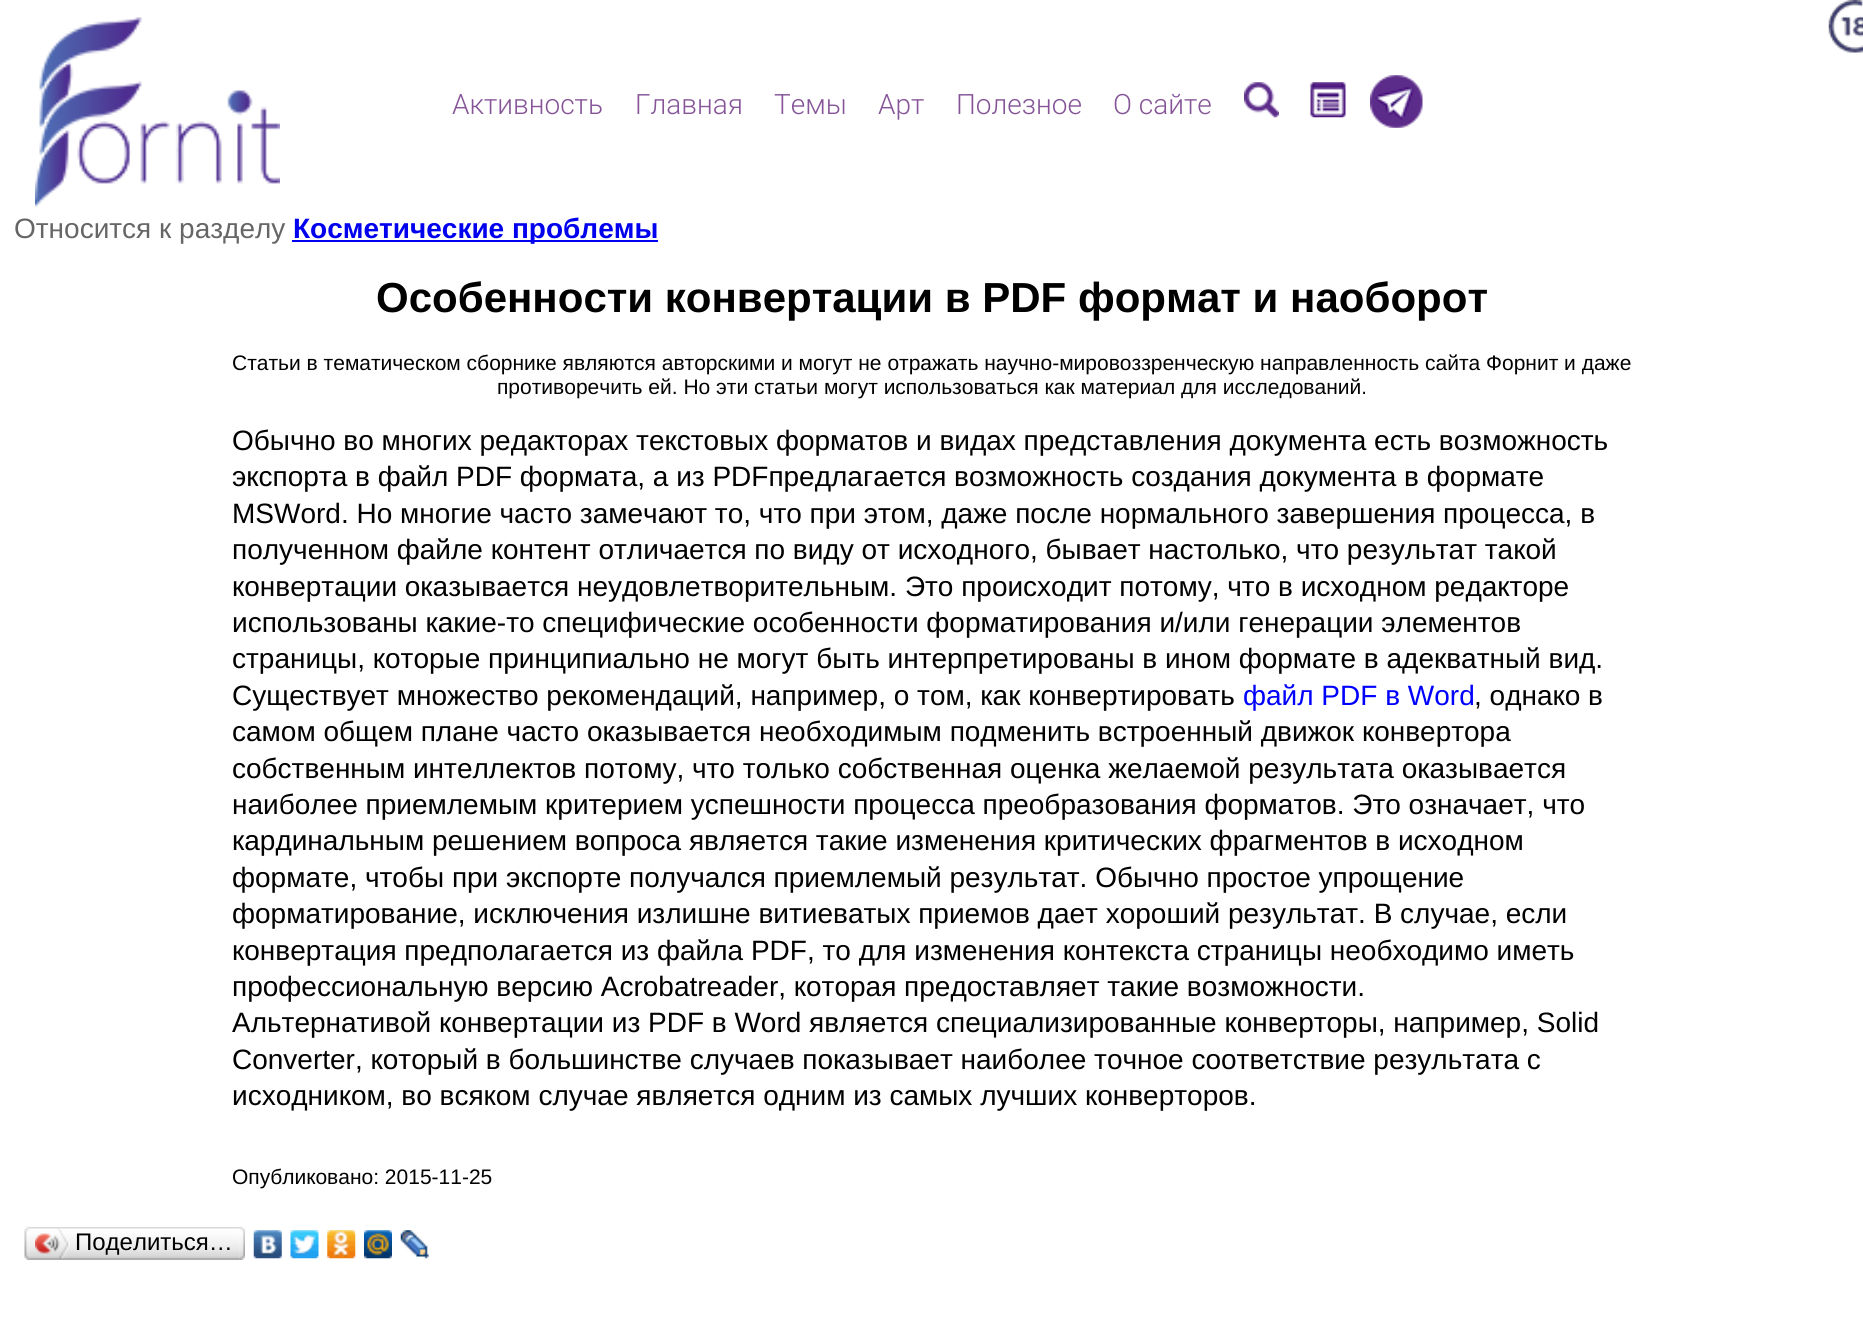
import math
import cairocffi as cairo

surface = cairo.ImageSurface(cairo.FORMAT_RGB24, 1863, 1326)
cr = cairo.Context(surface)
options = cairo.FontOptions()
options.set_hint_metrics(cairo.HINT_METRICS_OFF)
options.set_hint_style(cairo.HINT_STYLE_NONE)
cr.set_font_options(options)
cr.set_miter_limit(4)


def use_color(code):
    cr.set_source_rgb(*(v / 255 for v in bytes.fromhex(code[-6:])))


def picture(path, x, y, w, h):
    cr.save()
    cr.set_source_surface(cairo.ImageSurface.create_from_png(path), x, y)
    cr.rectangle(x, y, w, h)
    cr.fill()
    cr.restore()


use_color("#ffffff")
cr.paint()
picture("img1.png", 35, 17, 245, 190)
cr.select_font_face("Roboto Light")
cr.set_font_size(28)
use_color("#855598")
cr.move_to(452, 114)
cr.show_text("Активность")
cr.move_to(635, 114)
cr.show_text("Главная")
cr.move_to(774, 114)
cr.show_text("Темы")
cr.move_to(878, 114)
cr.show_text("Арт")
cr.move_to(956, 114)
cr.show_text("Полезное")
cr.move_to(1113, 114)
cr.show_text("О сайте")
picture("img2.png", 1244, 82, 35, 36)
picture("img3.png", 1310, 82, 36, 36)
picture("img4.png", 1370, 75, 53, 53)
picture("img5.png", 1828, 0, 35, 53)
cr.select_font_face("Liberation Sans")
use_color("#666666")
cr.move_to(14, 238)
cr.show_text("Относится к разделу")
use_color("#0000ee")
cr.rectangle(292, 240, 366, 2)
cr.fill()
cr.select_font_face("Liberation Sans", cairo.FONT_SLANT_NORMAL, cairo.FONT_WEIGHT_BOLD)
cr.move_to(293, 238)
cr.show_text("Косметические проблемы")
cr.set_font_size(42)
use_color("#000000")
cr.move_to(376, 312)
cr.show_text("Особенности конвертации в PDF формат и наоборот")
cr.select_font_face("Liberation Sans")
cr.set_font_size(21)
cr.move_to(232, 370)
cr.show_text("Статьи в тематическом сборнике являются авторскими и могут не отражать научно-мировоззренческую направленность сайта Форнит и даже")
cr.move_to(497, 394)
cr.show_text("противоречить ей. Но эти статьи могут использоваться как материал для исследований.")
cr.set_font_size(28)
cr.move_to(232, 450)
cr.show_text("Обычно во многих редакторах текстовых форматов и видах представления документа есть возможность")
cr.move_to(232, 486)
cr.show_text("экспорта в файл PDF формата, а из PDFпредлагается возможность создания документа в формате")
cr.move_to(232, 523)
cr.show_text("MSWord. Но многие часто замечают то, что при этом, даже после нормального завершения процесса, в")
cr.move_to(232, 559)
cr.show_text("полученном файле контент отличается по виду от исходного, бывает настолько, что результат такой")
cr.move_to(232, 596)
cr.show_text("конвертации оказывается неудовлетворительным. Это происходит потому, что в исходном редакторе")
cr.move_to(232, 632)
cr.show_text("использованы какие-то специфические особенности форматирования и/или генерации элементов")
cr.move_to(232, 668)
cr.show_text("страницы, которые принципиально не могут быть интерпретированы в ином формате в адекватный вид.")
cr.move_to(232, 705)
cr.show_text("Существует множество рекомендаций, например, о том, как конвертировать")
use_color("#0000ff")
cr.move_to(1243, 705)
cr.show_text("файл PDF в Word")
use_color("#000000")
cr.move_to(1474, 705)
cr.show_text(", однако в")
cr.move_to(232, 741)
cr.show_text("самом общем плане часто оказывается необходимым подменить встроенный движок конвертора")
cr.move_to(232, 778)
cr.show_text("собственным интеллектов потому, что только собственная оценка желаемой результата оказывается")
cr.move_to(232, 814)
cr.show_text("наиболее приемлемым критерием успешности процесса преобразования форматов. Это означает, что")
cr.move_to(232, 850)
cr.show_text("кардинальным решением вопроса является такие изменения критических фрагментов в исходном")
cr.move_to(232, 887)
cr.show_text("формате, чтобы при экспорте получался приемлемый результат. Обычно простое упрощение")
cr.move_to(232, 923)
cr.show_text("форматирование, исключения излишне витиеватых приемов дает хороший результат. В случае, если")
cr.move_to(232, 960)
cr.show_text("конвертация предполагается из файла PDF, то для изменения контекста страницы необходимо иметь")
cr.move_to(232, 996)
cr.show_text("профессиональную версию Acrobatreader, которая предоставляет такие возможности.")
cr.move_to(232, 1032)
cr.show_text("Альтернативой конвертации из PDF в Word является специализированные конверторы, например, Solid")
cr.move_to(232, 1069)
cr.show_text("Converter, который в большинстве случаев показывает наиболее точное соответствие результата с")
cr.move_to(232, 1105)
cr.show_text("исходником, во всяком случае является одним из самых лучших конверторов.")
cr.set_font_size(21)
cr.move_to(232, 1184)
cr.show_text("Опубликовано: 2015-11-25")
picture("img6.png", 29, 1227, 211, 33)
picture("img7.png", 24, 1226, 6, 34)
picture("img8.png", 35, 1228, 35, 31)
cr.set_font_size(24)
cr.move_to(75, 1250)
cr.show_text("Поделиться…")
picture("img9.png", 239, 1226, 6, 34)
picture("img10.png", 253, 1230, 29, 29)
picture("img11.png", 290, 1230, 29, 29)
picture("img12.png", 327, 1230, 29, 29)
picture("img13.png", 364, 1230, 28, 29)
picture("img14.png", 400, 1230, 29, 29)
surface.write_to_png("result.png")
